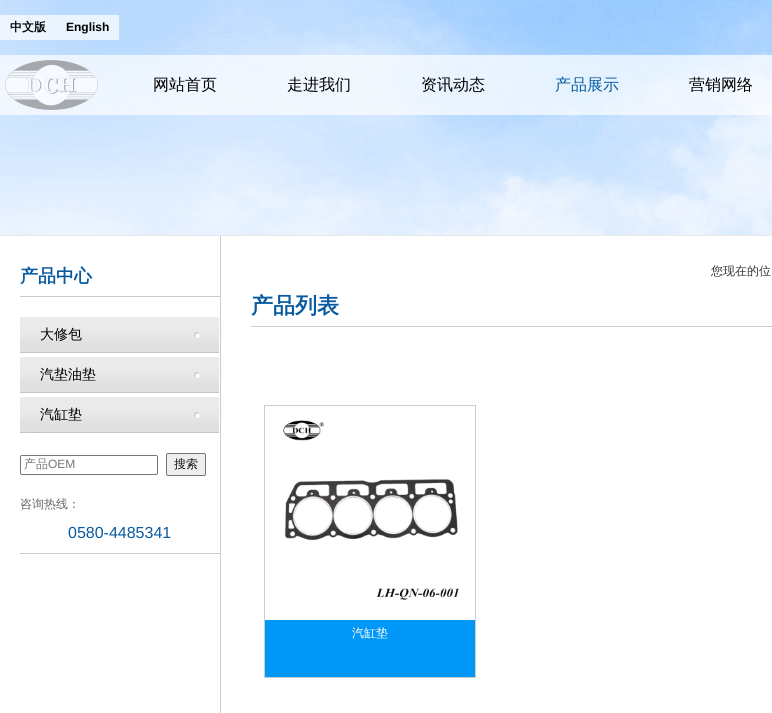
import math
import cairocffi as cairo

surface = cairo.ImageSurface(cairo.FORMAT_RGB24, 772, 713)
cr = cairo.Context(surface)
options = cairo.FontOptions()
options.set_hint_metrics(cairo.HINT_METRICS_OFF)
options.set_hint_style(cairo.HINT_STYLE_NONE)
cr.set_font_options(options)
cr.set_miter_limit(4)


def use_color(code):
    cr.set_source_rgb(*(v / 255 for v in bytes.fromhex(code[-6:])))


def round_rect(x, y, w, h, r):
    cr.new_sub_path()
    for i, (u, v) in enumerate([(x + w - r, y + h - r), (x + r, y + h - r), (x + r, y + r), (x + w - r, y + r)]):
        cr.arc(u, v, r, i * math.pi / 2, (i + 1) * math.pi / 2)
    cr.close_path()


def picture(path, x, y, w, h):
    cr.save()
    cr.set_source_surface(cairo.ImageSurface.create_from_png(path), x, y)
    cr.rectangle(x, y, w, h)
    cr.fill()
    cr.restore()


use_color("#ffffff")
cr.paint()
picture("img1.png", 0, 0, 772, 235)
cr.set_source_rgba(1, 1, 1, 0.7)
cr.rectangle(0, 15, 119, 25)
cr.fill()
cr.select_font_face("WenQuanYi Zen Hei", cairo.FONT_SLANT_NORMAL, cairo.FONT_WEIGHT_BOLD)
cr.set_font_size(12)
use_color("#000000")
cr.move_to(10, 31)
cr.show_text("中文版")
cr.select_font_face("Liberation Sans", cairo.FONT_SLANT_NORMAL, cairo.FONT_WEIGHT_BOLD)
cr.move_to(66, 31)
cr.show_text("English")
cr.set_source_rgba(1, 1, 1, 0.7)
cr.rectangle(0, 55, 772, 60)
cr.fill()
picture("img2.png", 5, 60, 93, 50)
cr.select_font_face("WenQuanYi Zen Hei Medium")
cr.set_font_size(16)
use_color("#000000")
cr.move_to(153, 90)
cr.show_text("网站首页")
cr.move_to(287, 90)
cr.show_text("走进我们")
cr.move_to(421, 90)
cr.show_text("资讯动态")
use_color("#095aa0")
cr.move_to(555, 90)
cr.show_text("产品展示")
use_color("#000000")
cr.move_to(689, 90)
cr.show_text("营销网络")
use_color("#e8e8e8")
cr.rectangle(0, 235, 772, 1)
cr.fill()
use_color("#cccccc")
cr.rectangle(20, 296, 200, 1)
cr.fill()
cr.select_font_face("WenQuanYi Zen Hei", cairo.FONT_SLANT_NORMAL, cairo.FONT_WEIGHT_BOLD)
cr.set_font_size(18)
use_color("#095aa0")
cr.move_to(20, 282)
cr.show_text("产品中心")
picture("img3.png", 20, 317, 200, 36)
cr.select_font_face("WenQuanYi Zen Hei Medium")
cr.set_font_size(14)
use_color("#000000")
cr.move_to(40, 339)
cr.show_text("大修包")
picture("img3.png", 20, 357, 200, 36)
cr.move_to(40, 379)
cr.show_text("汽垫油垫")
picture("img3.png", 20, 397, 200, 36)
cr.move_to(40, 419)
cr.show_text("汽缸垫")
round_rect(20.5, 455.5, 137, 19, 1.5)
use_color("#767676")
cr.set_line_width(1)
cr.stroke()
cr.set_font_size(12)
use_color("#757575")
cr.move_to(24, 468)
cr.show_text("产品")
cr.select_font_face("Liberation Sans")
cr.move_to(48, 468)
cr.show_text("OEM")
use_color("#efefef")
round_rect(166.5, 453.5, 39, 22, 1.5)
cr.fill_preserve()
use_color("#767676")
cr.stroke()
cr.select_font_face("WenQuanYi Zen Hei Medium")
use_color("#111111")
cr.move_to(174, 468)
cr.show_text("搜索")
use_color("#666666")
cr.move_to(20, 508)
cr.show_text("咨询热线：")
use_color("#cccccc")
cr.rectangle(20, 553, 200, 1)
cr.fill()
cr.select_font_face("Liberation Sans")
cr.set_font_size(16)
use_color("#095aa0")
cr.move_to(68, 538)
cr.show_text("0580-4485341")
use_color("#cccccc")
cr.rectangle(220, 236, 1, 477)
cr.fill()
cr.select_font_face("WenQuanYi Zen Hei Medium")
cr.set_font_size(12)
use_color("#333333")
cr.move_to(711, 275)
cr.show_text("您现在的位")
use_color("#cccccc")
cr.rectangle(251, 326, 521, 1)
cr.fill()
cr.select_font_face("WenQuanYi Zen Hei", cairo.FONT_SLANT_NORMAL, cairo.FONT_WEIGHT_BOLD)
cr.set_font_size(22)
use_color("#095aa0")
cr.move_to(251, 313)
cr.show_text("产品列表")
cr.rectangle(264.5, 405.5, 211, 272)
use_color("#cccccc")
cr.stroke()
picture("img4.png", 283, 420, 176, 180)
use_color("#0197f6")
cr.rectangle(265, 620, 210, 57)
cr.fill()
cr.select_font_face("WenQuanYi Zen Hei Medium")
cr.set_font_size(12)
use_color("#ffffff")
cr.move_to(352, 637)
cr.show_text("汽缸垫")
surface.write_to_png("result.png")
